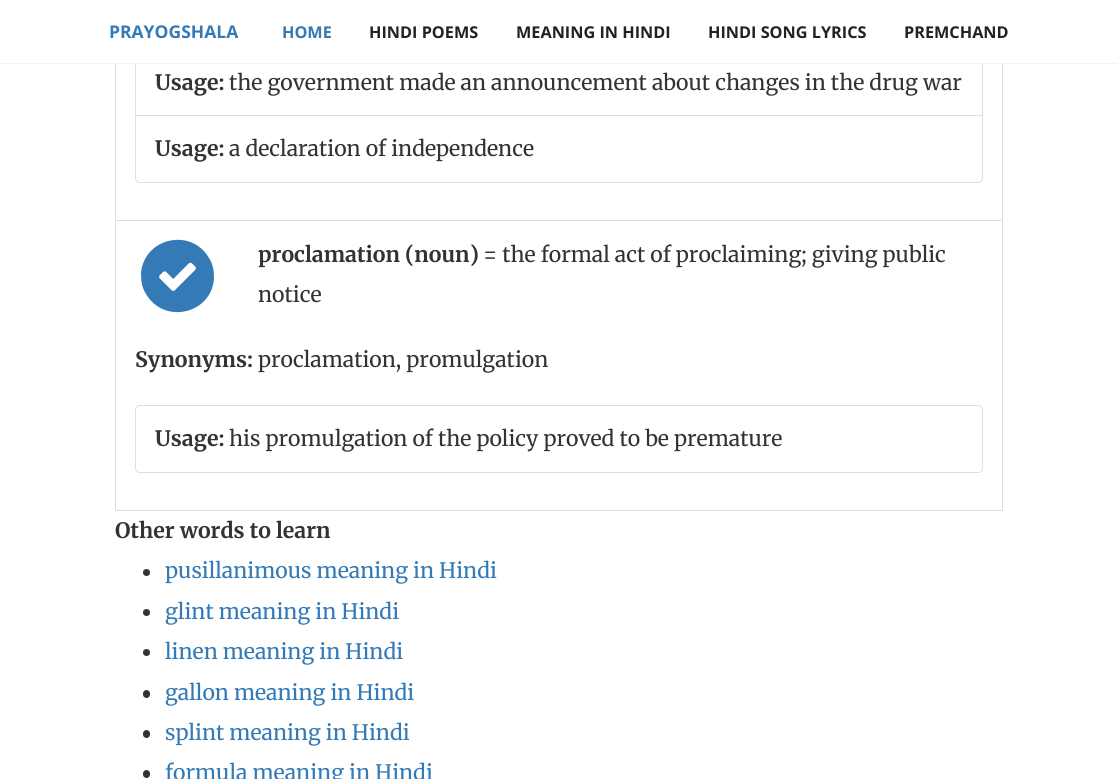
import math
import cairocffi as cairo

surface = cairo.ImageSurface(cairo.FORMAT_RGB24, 1117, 779)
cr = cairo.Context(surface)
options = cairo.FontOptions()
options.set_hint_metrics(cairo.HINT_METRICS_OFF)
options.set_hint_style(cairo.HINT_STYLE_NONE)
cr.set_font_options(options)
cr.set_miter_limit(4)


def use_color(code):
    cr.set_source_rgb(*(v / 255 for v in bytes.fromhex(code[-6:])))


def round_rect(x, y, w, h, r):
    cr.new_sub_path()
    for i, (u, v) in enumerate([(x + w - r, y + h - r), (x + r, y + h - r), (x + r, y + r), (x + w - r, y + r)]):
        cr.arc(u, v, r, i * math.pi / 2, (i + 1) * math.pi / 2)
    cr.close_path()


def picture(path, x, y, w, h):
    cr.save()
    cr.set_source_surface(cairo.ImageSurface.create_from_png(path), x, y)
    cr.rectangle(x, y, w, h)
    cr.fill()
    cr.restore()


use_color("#ffffff")
cr.paint()
cr.rectangle(115.5, -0.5, 887, 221)
use_color("#dddddd")
cr.set_line_width(1)
cr.stroke()
cr.rectangle(135.5, 49.5, 847, 66)
cr.stroke()
use_color("#ffffff")
cr.rectangle(115, 0, 888, 63)
cr.fill()
use_color("#f4f4f4")
cr.rectangle(0, 63, 1117, 1)
cr.fill()
cr.select_font_face("Open Sans", cairo.FONT_SLANT_NORMAL, cairo.FONT_WEIGHT_BOLD)
cr.set_font_size(17.5)
use_color("#337ab7")
cr.move_to(109, 38)
cr.show_text("PRAYOGSHALA")
cr.set_font_size(16.25)
cr.move_to(282, 38)
cr.show_text("HOME")
use_color("#222222")
cr.move_to(369, 38)
cr.show_text("HINDI POEMS")
cr.move_to(516, 38)
cr.show_text("MEANING IN HINDI")
cr.move_to(708, 38)
cr.show_text("HINDI SONG LYRICS")
cr.move_to(904, 38)
cr.show_text("PREMCHAND")
cr.select_font_face("Merriweather", cairo.FONT_SLANT_NORMAL, cairo.FONT_WEIGHT_BOLD)
cr.set_font_size(21.25)
use_color("#333333")
cr.move_to(155, 90)
cr.show_text("Usage:")
cr.select_font_face("Merriweather")
cr.move_to(229, 90)
cr.show_text("the government made an announcement about changes in the drug war")
use_color("#ffffff")
cr.new_path()
cr.move_to(135.5, 115.5)
cr.line_to(982.5, 115.5)
cr.line_to(982.5, 178)
cr.curve_to(982.5, 180.5, 980.5, 182.5, 978, 182.5)
cr.line_to(140, 182.5)
cr.curve_to(137.5, 182.5, 135.5, 180.5, 135.5, 178)
cr.close_path()
cr.fill_preserve()
use_color("#dddddd")
cr.stroke()
cr.select_font_face("Merriweather", cairo.FONT_SLANT_NORMAL, cairo.FONT_WEIGHT_BOLD)
use_color("#333333")
cr.move_to(155, 156)
cr.show_text("Usage:")
cr.select_font_face("Merriweather")
cr.move_to(229, 156)
cr.show_text("a declaration of independence")
cr.rectangle(115.5, 220.5, 887, 290)
use_color("#dddddd")
cr.stroke()
use_color("#337ab7")
cr.new_path()
cr.move_to(209, 258)
cr.curve_to(213, 264, 214, 271, 214, 278)
cr.curve_to(212, 314, 164, 325, 146, 294)
cr.curve_to(142, 288, 141, 281, 141, 273)
cr.curve_to(144, 238, 191, 227, 209, 258)
cr.close_path()
cr.fill()
picture("img1.png", 159, 262, 37, 29)
cr.select_font_face("Merriweather", cairo.FONT_SLANT_NORMAL, cairo.FONT_WEIGHT_BOLD)
use_color("#333333")
cr.move_to(258, 262)
cr.show_text("proclamation (noun)")
cr.select_font_face("Merriweather")
cr.move_to(483, 262)
cr.show_text("= the formal act of proclaiming; giving public")
cr.move_to(258, 302)
cr.show_text("notice")
cr.select_font_face("Merriweather", cairo.FONT_SLANT_NORMAL, cairo.FONT_WEIGHT_BOLD)
cr.move_to(135, 367)
cr.show_text("Synonyms:")
cr.select_font_face("Merriweather")
cr.move_to(258, 367)
cr.show_text("proclamation, promulgation")
round_rect(135.5, 405.5, 847, 67, 4.5)
use_color("#dddddd")
cr.stroke()
cr.select_font_face("Merriweather", cairo.FONT_SLANT_NORMAL, cairo.FONT_WEIGHT_BOLD)
use_color("#333333")
cr.move_to(155, 446)
cr.show_text("Usage:")
cr.select_font_face("Merriweather")
cr.move_to(229, 446)
cr.show_text("his promulgation of the policy proved to be premature")
cr.select_font_face("Merriweather", cairo.FONT_SLANT_NORMAL, cairo.FONT_WEIGHT_BOLD)
cr.move_to(115, 538)
cr.show_text("Other words to learn")
cr.new_path()
cr.arc(146.5, 572.5, 3.5, 0, 2 * math.pi)
cr.fill()
cr.select_font_face("Merriweather")
use_color("#337ab7")
cr.move_to(165, 578)
cr.show_text("pusillanimous meaning in Hindi")
use_color("#333333")
cr.new_path()
cr.arc(146.5, 612.5, 3.5, 0, 2 * math.pi)
cr.fill()
use_color("#337ab7")
cr.move_to(165, 619)
cr.show_text("glint meaning in Hindi")
use_color("#333333")
cr.new_path()
cr.arc(146.5, 652.5, 3.5, 0, 2 * math.pi)
cr.fill()
use_color("#337ab7")
cr.move_to(165, 659)
cr.show_text("linen meaning in Hindi")
use_color("#333333")
round_rect(143, 690, 7, 8, 3.5)
cr.fill()
use_color("#337ab7")
cr.move_to(165, 700)
cr.show_text("gallon meaning in Hindi")
use_color("#333333")
round_rect(143, 730, 7, 8, 3.5)
cr.fill()
use_color("#337ab7")
cr.move_to(165, 740)
cr.show_text("splint meaning in Hindi")
use_color("#333333")
round_rect(143, 770, 7, 8, 3.5)
cr.fill()
use_color("#337ab7")
cr.move_to(165, 780)
cr.show_text("formula meaning in Hindi")
surface.write_to_png("result.png")
